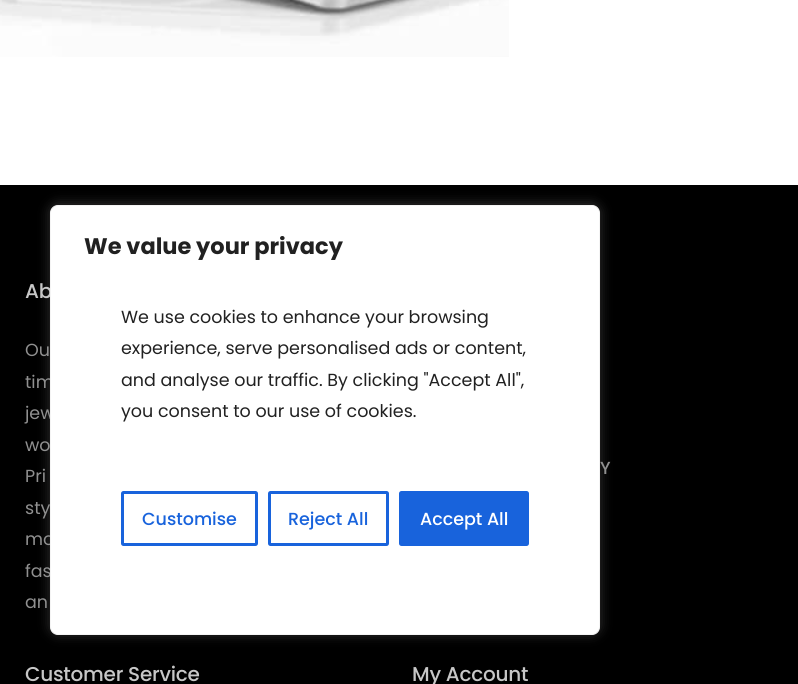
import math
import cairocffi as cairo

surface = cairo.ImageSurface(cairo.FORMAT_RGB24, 798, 684)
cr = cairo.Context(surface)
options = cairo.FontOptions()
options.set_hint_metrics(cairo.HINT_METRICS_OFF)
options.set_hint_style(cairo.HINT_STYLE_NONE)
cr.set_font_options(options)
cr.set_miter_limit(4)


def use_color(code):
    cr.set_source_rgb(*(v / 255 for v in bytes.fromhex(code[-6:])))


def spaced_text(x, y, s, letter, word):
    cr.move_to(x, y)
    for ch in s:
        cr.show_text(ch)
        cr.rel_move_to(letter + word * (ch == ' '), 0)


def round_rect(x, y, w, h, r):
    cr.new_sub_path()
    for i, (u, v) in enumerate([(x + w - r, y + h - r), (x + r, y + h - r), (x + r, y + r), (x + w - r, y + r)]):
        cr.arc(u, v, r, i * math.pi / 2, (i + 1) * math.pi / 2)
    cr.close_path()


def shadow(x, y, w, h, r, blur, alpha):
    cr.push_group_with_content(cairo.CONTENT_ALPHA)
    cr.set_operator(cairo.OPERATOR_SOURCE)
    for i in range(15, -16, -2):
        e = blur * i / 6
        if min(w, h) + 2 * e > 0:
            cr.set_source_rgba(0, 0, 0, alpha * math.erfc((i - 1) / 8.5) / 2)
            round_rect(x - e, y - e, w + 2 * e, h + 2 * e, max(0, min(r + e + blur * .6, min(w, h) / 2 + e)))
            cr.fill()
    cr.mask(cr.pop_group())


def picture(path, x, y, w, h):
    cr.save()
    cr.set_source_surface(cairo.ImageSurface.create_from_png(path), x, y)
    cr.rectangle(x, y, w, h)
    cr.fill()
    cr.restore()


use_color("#ffffff")
cr.paint()
use_color("#000000")
cr.rectangle(0, 185, 798, 499)
cr.fill()
use_color("#acabab")
shadow(50, 204, 550, 430, 8, 6, 0.3)
cr.select_font_face("Poppins Medium")
cr.set_font_size(20)
use_color("#c7c7c7")
spaced_text(25, 298, "Ab", -0.25, 0)
cr.select_font_face("Poppins")
cr.set_font_size(17.5)
use_color("#909090")
cr.move_to(25, 388)
cr.show_text("tim")
cr.move_to(25, 419)
cr.show_text("jew")
cr.move_to(25, 514)
cr.show_text("sty")
cr.move_to(25, 545)
cr.show_text("mo")
cr.move_to(25, 577)
cr.show_text("fas")
use_color("#ffffff")
round_rect(50.5, 205.5, 549, 429, 7.5)
cr.fill_preserve()
use_color("#f4f4f4")
cr.set_line_width(1)
cr.stroke()
cr.select_font_face("Poppins", cairo.FONT_SLANT_NORMAL, cairo.FONT_WEIGHT_BOLD)
cr.set_font_size(22.5)
use_color("#212121")
cr.move_to(84, 254)
cr.show_text("We value your privacy")
cr.select_font_face("Poppins")
cr.set_font_size(17.5)
cr.move_to(121, 323)
cr.show_text("We use cookies to enhance your browsing")
cr.move_to(121, 354)
cr.show_text("experience, serve personalised ads or content,")
cr.move_to(121, 386)
cr.show_text("and analyse our traffic. By clicking \"Accept All\",")
cr.move_to(121, 417)
cr.show_text("you consent to our use of cookies.")
round_rect(122.5, 492.5, 134, 52, 1)
use_color("#1863dc")
cr.set_line_width(3)
cr.stroke()
cr.select_font_face("Poppins Medium")
cr.move_to(142, 525)
cr.show_text("Customise")
round_rect(269.5, 492.5, 118, 52, 1)
cr.stroke()
cr.move_to(288, 525)
cr.show_text("Reject All")
round_rect(400.5, 492.5, 127, 52, 1)
cr.fill_preserve()
cr.stroke()
use_color("#ffffff")
cr.move_to(420, 525)
cr.show_text("Accept All")
picture("img1.png", 0, 0, 509, 57)
cr.select_font_face("Poppins")
use_color("#909090")
cr.move_to(25, 356)
cr.show_text("Ou")
cr.move_to(25, 451)
cr.show_text("wo")
cr.move_to(25, 482)
cr.show_text("Pri")
cr.move_to(25, 608)
cr.show_text("an")
cr.select_font_face("Poppins Medium")
cr.move_to(600, 474)
cr.show_text("Y")
cr.set_font_size(20)
use_color("#c7c7c7")
spaced_text(25, 681, "Customer Service", -0.25, 0)
spaced_text(412, 681, "My Account", -0.25, 0)
surface.write_to_png("result.png")
